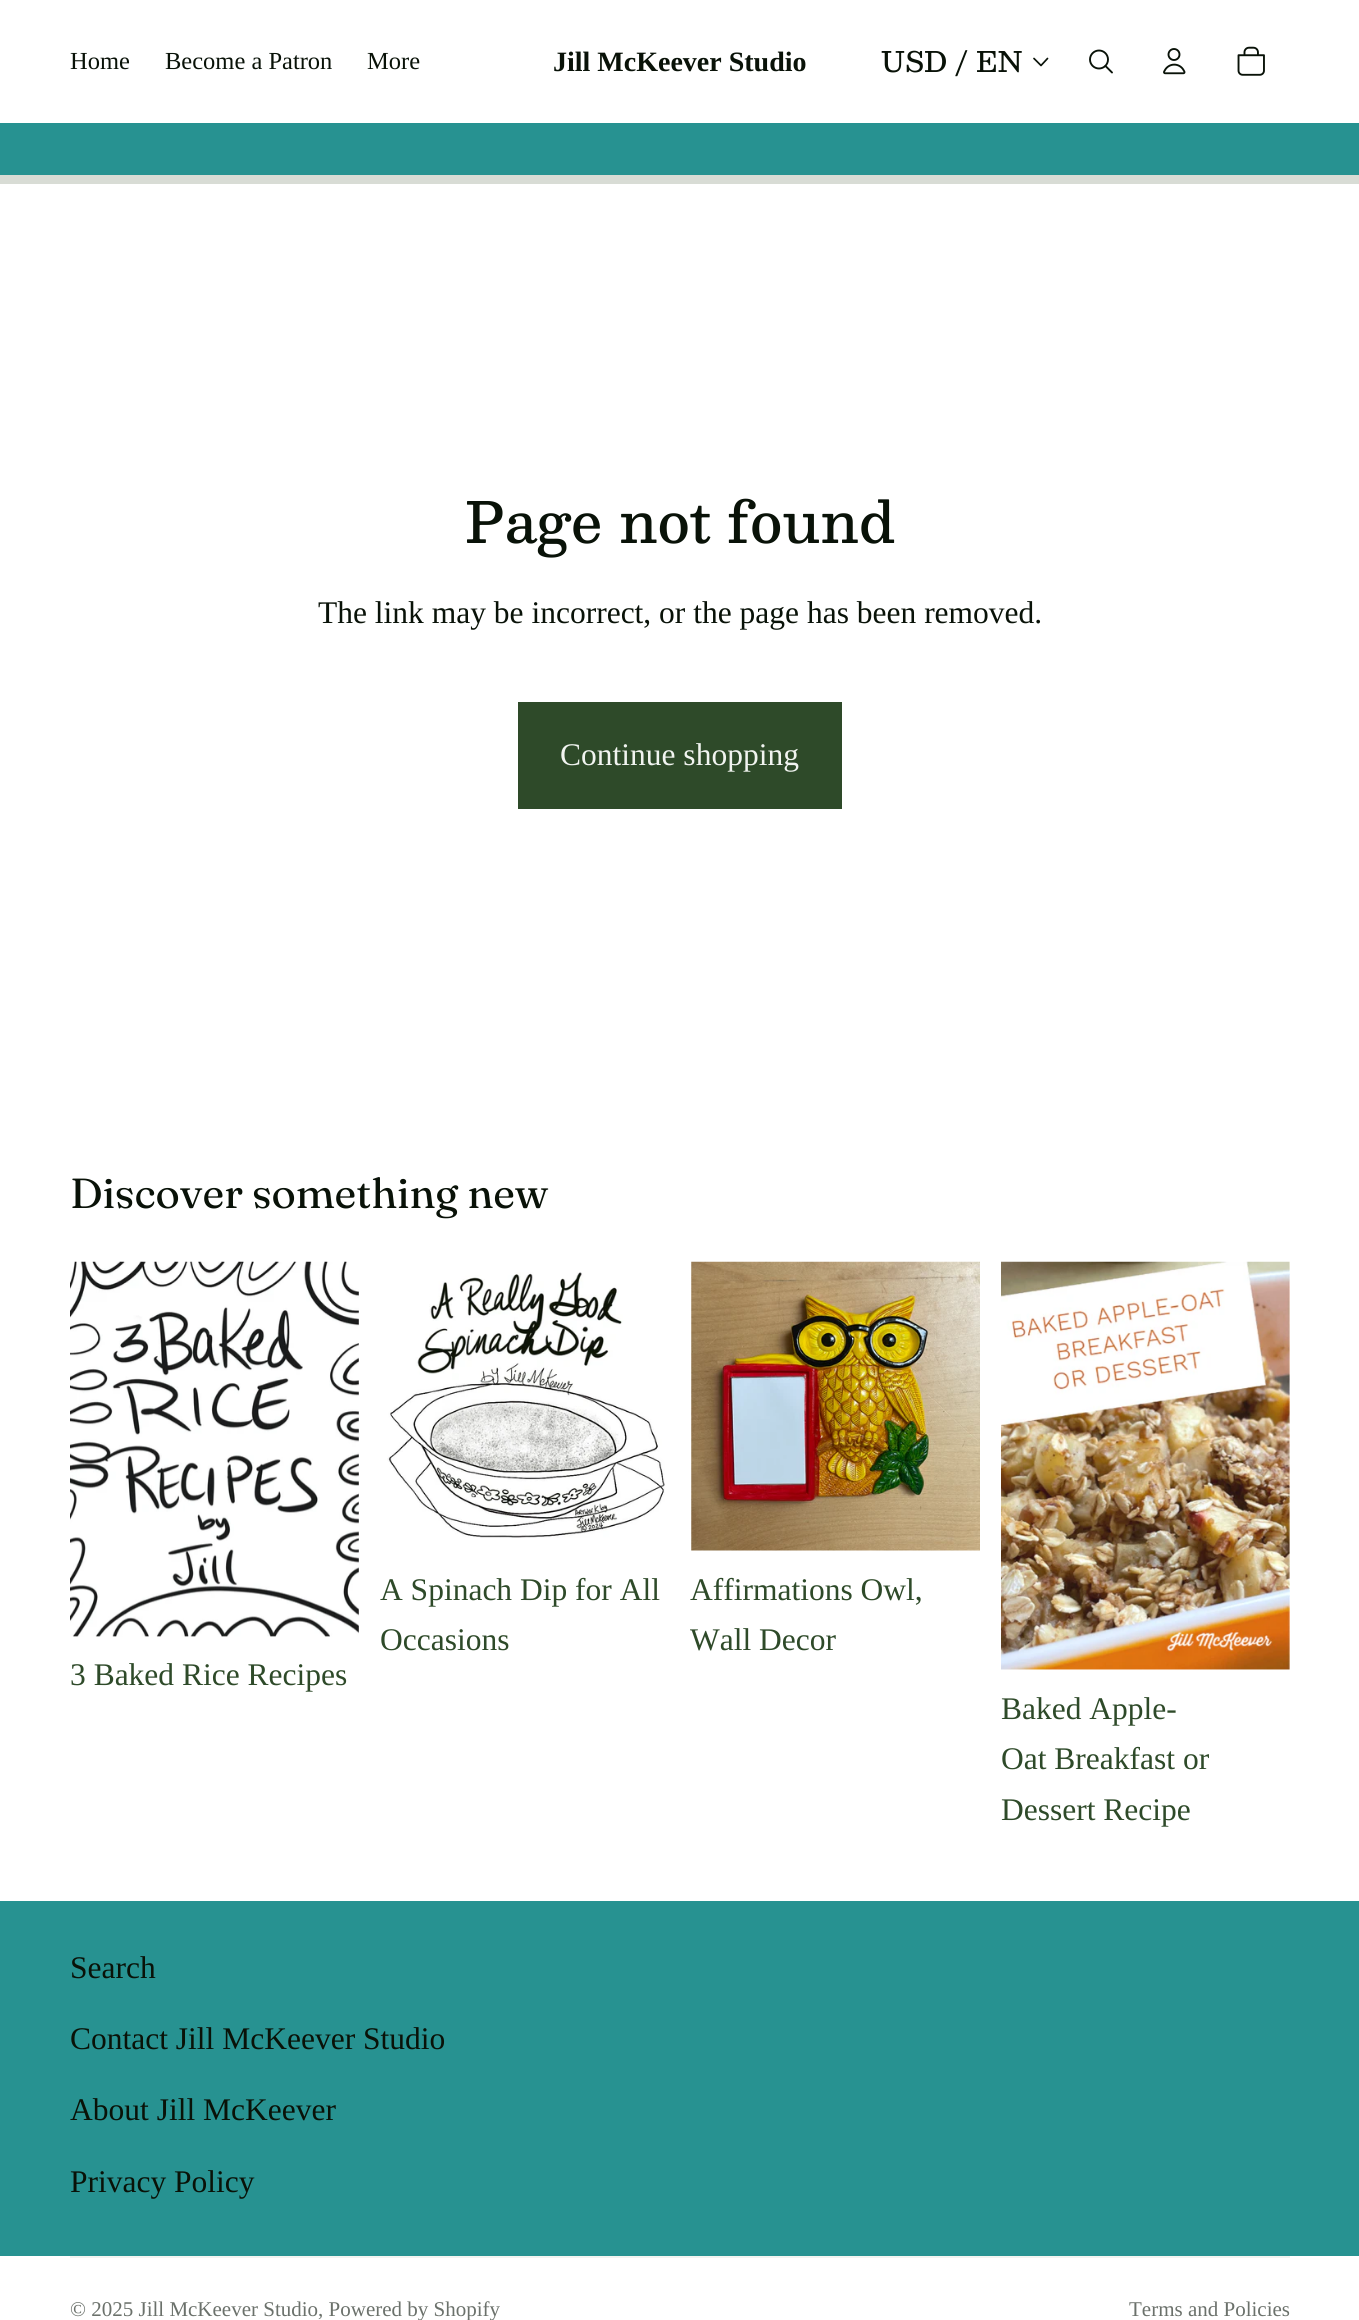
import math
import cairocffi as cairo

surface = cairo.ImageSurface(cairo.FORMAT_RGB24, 1359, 2320)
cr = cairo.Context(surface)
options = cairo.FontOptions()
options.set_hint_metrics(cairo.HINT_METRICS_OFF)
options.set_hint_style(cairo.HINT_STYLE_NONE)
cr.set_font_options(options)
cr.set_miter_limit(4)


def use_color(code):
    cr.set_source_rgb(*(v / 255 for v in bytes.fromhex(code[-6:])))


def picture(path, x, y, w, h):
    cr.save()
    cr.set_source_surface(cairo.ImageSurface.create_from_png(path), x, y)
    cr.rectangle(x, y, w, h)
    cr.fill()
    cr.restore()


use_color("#ffffff")
cr.paint()
cr.select_font_face("Liberation Serif")
cr.set_font_size(24.5)
use_color("#091208")
cr.move_to(70, 69)
cr.show_text("Home")
cr.move_to(165, 69)
cr.show_text("Become a Patron")
cr.move_to(367, 69)
cr.show_text("More")
cr.select_font_face("Liberation Serif", cairo.FONT_SLANT_NORMAL, cairo.FONT_WEIGHT_BOLD)
cr.set_font_size(28)
cr.move_to(553, 71)
cr.show_text("Jill McKeever Studio")
cr.select_font_face("Besley Medium")
cr.move_to(881, 72)
cr.show_text("USD")
cr.move_to(954, 72)
cr.show_text("/")
cr.move_to(976, 72)
cr.show_text("EN")
cr.new_path()
cr.move_to(1047.5, 58.5)
cr.line_to(1041, 65.5)
cr.line_to(1034, 58.5)
cr.set_line_width(1.7)
cr.set_line_cap(cairo.LINE_CAP_ROUND)
cr.set_line_join(cairo.LINE_JOIN_ROUND)
cr.stroke()
cr.arc(1099, 59.5, 9, 0, 2 * math.pi)
cr.set_line_width(1.9)
cr.set_line_cap(cairo.LINE_CAP_BUTT)
cr.set_line_join(cairo.LINE_JOIN_MITER)
cr.stroke()
cr.new_path()
cr.move_to(1105.5, 66)
cr.line_to(1112, 72.5)
cr.set_line_cap(cairo.LINE_CAP_ROUND)
cr.set_line_join(cairo.LINE_JOIN_ROUND)
cr.stroke()
picture("img1.png", 1163, 48, 23, 27)
picture("img2.png", 1237, 46, 28, 30)
use_color("#279291")
cr.rectangle(0, 123, 1359, 52)
cr.fill()
use_color("#d8dcd5")
cr.rectangle(0, 175, 1359, 9)
cr.fill()
cr.set_font_size(56)
use_color("#091208")
cr.move_to(465, 543)
cr.show_text("Page not found")
cr.select_font_face("Liberation Serif")
cr.set_font_size(31.5)
cr.move_to(318, 623)
cr.show_text("The link may be incorrect, or the page has been removed.")
use_color("#2e4a29")
cr.rectangle(518, 702, 324, 107)
cr.fill()
use_color("#f1f4f0")
cr.move_to(560, 765)
cr.show_text("Continue shopping")
cr.select_font_face("Fraunces")
cr.set_font_size(42)
use_color("#091208")
cr.move_to(70, 1208)
cr.show_text("Discover something new")
picture("img3.png", 387, 1272, 278, 266)
cr.select_font_face("Liberation Serif")
cr.set_font_size(31.5)
use_color("#2e4a29")
cr.move_to(380, 1600)
cr.show_text("A Spinach Dip for All")
cr.move_to(380, 1650)
cr.show_text("Occasions")
picture("img4.png", 691, 1261, 289, 290)
cr.move_to(690, 1600)
cr.show_text("Affirmations Owl,")
cr.move_to(690, 1650)
cr.show_text("Wall Decor")
picture("img5.png", 70, 1261, 289, 376)
cr.move_to(70, 1685)
cr.show_text("3 Baked Rice Recipes")
picture("img6.png", 1001, 1261, 289, 409)
cr.move_to(1001, 1719)
cr.show_text("Baked Apple-")
cr.move_to(1001, 1769)
cr.show_text("Oat Breakfast or")
cr.move_to(1001, 1820)
cr.show_text("Dessert Recipe")
use_color("#279291")
cr.rectangle(0, 1901, 1359, 355)
cr.fill()
use_color("#091208")
cr.move_to(70, 1978)
cr.show_text("Search")
cr.move_to(70, 2049)
cr.show_text("Contact Jill McKeever Studio")
cr.move_to(70, 2120)
cr.show_text("About Jill McKeever")
cr.move_to(70, 2192)
cr.show_text("Privacy Policy")
use_color("#f1f4f0")
cr.rectangle(70, 2256, 1220, 2)
cr.fill()
cr.set_font_size(21)
use_color("#6b716b")
cr.move_to(70, 2316)
cr.show_text("© 2025 Jill McKeever Studio, Powered by Shopify")
cr.move_to(1129, 2316)
cr.show_text("Terms and Policies")
surface.write_to_png("result.png")
